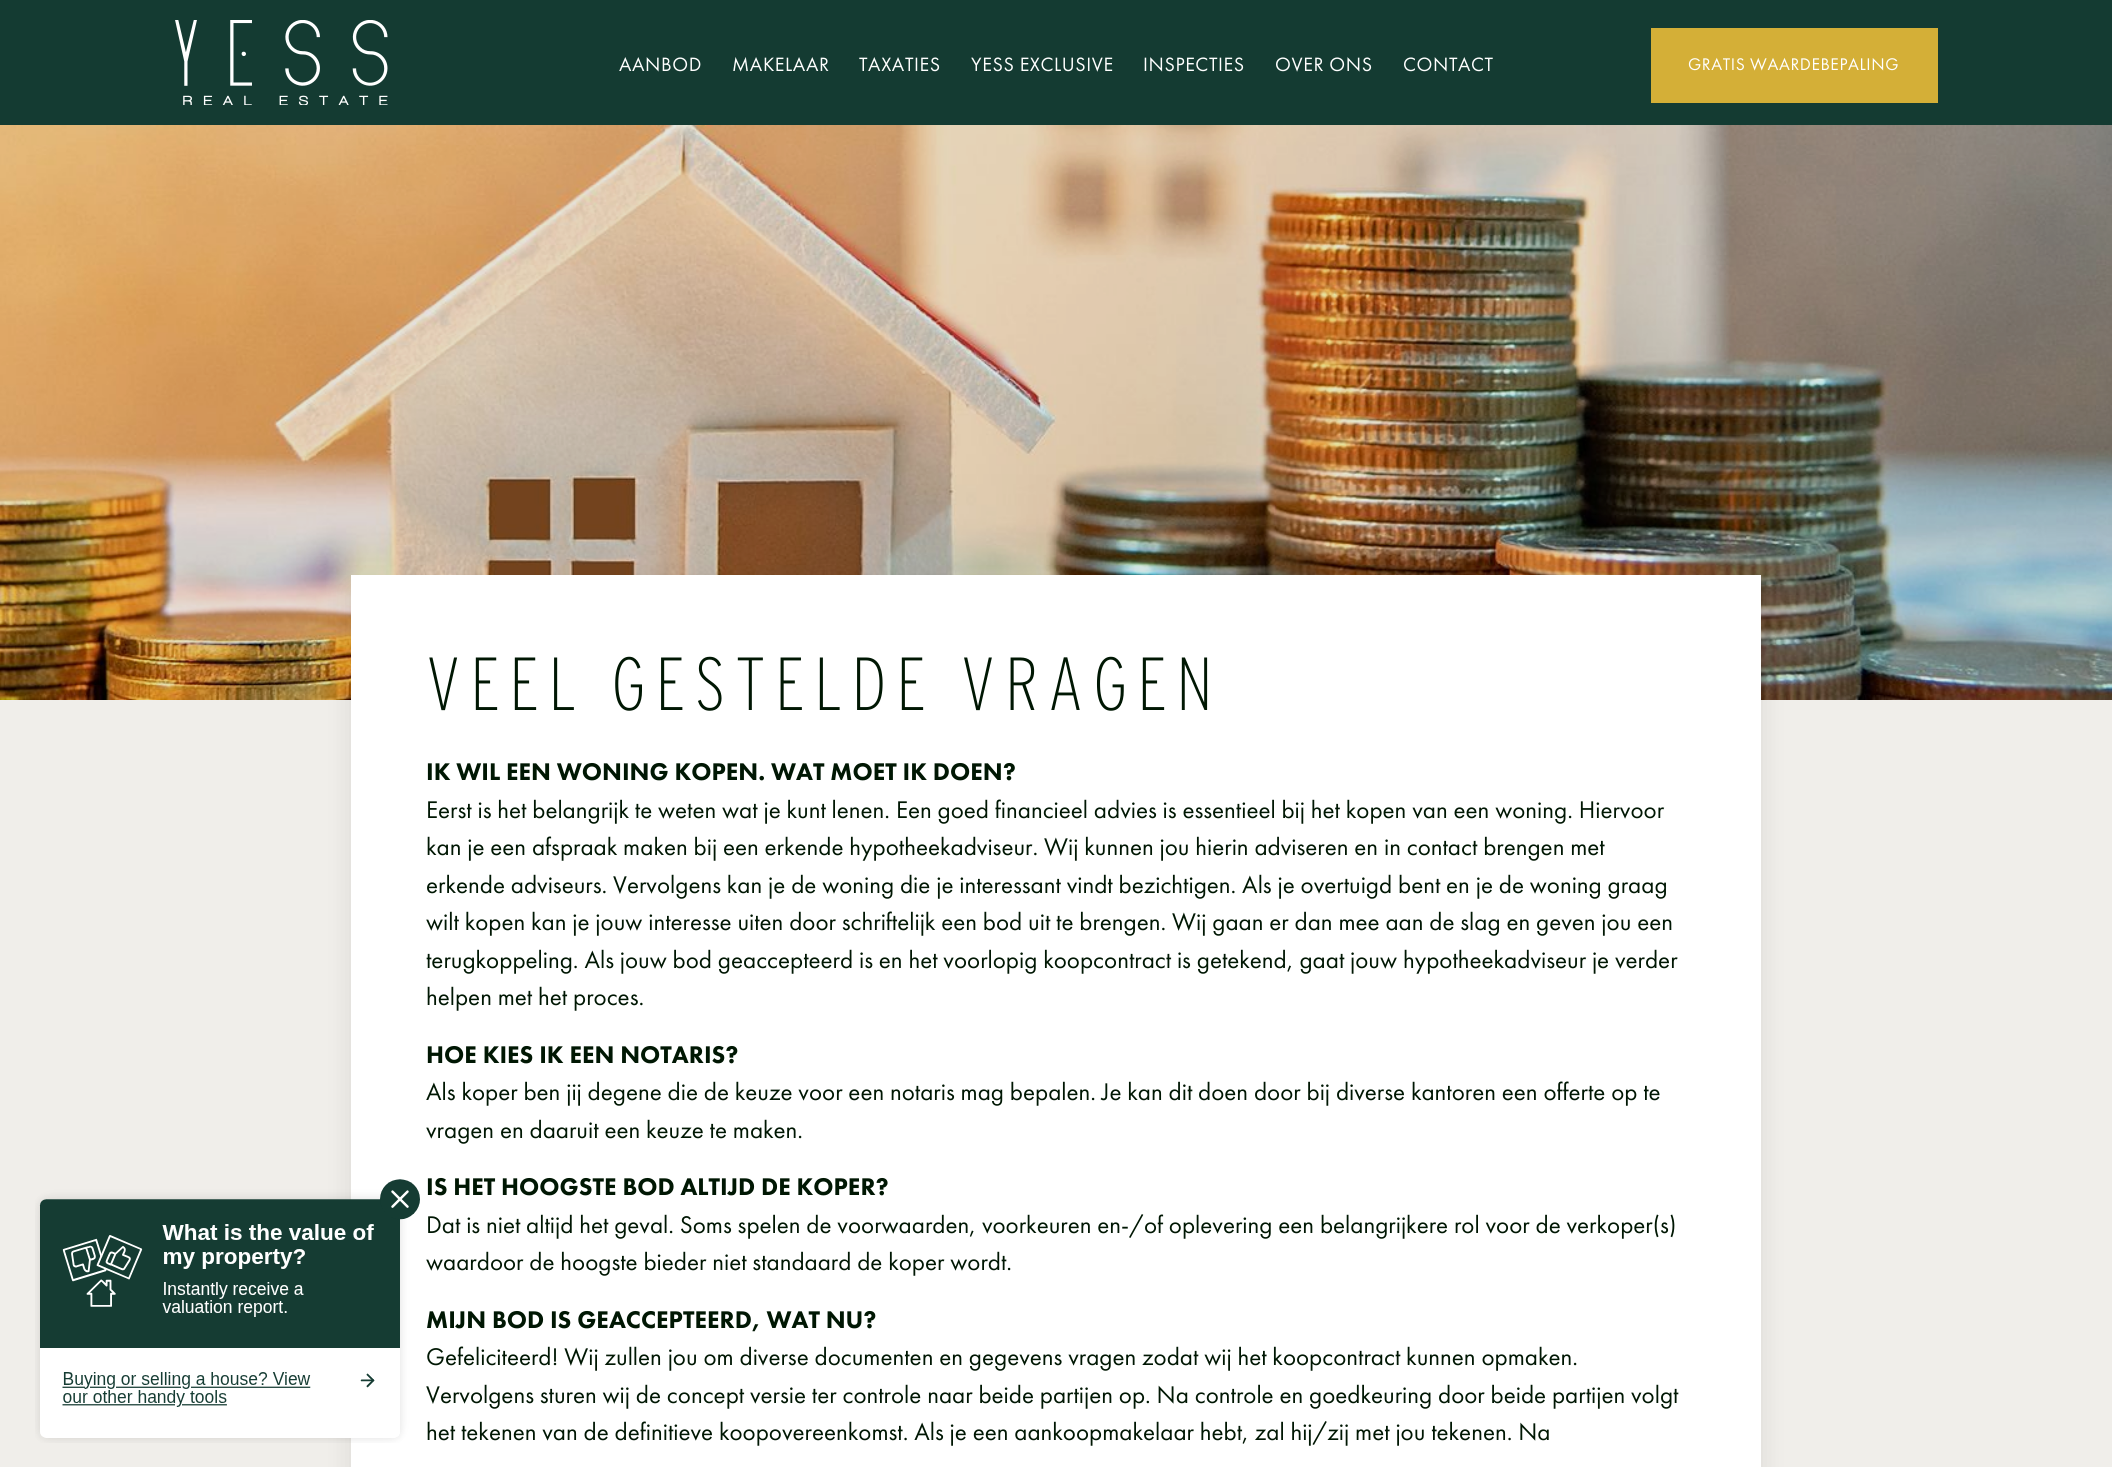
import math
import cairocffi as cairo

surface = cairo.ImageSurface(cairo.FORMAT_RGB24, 2112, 1467)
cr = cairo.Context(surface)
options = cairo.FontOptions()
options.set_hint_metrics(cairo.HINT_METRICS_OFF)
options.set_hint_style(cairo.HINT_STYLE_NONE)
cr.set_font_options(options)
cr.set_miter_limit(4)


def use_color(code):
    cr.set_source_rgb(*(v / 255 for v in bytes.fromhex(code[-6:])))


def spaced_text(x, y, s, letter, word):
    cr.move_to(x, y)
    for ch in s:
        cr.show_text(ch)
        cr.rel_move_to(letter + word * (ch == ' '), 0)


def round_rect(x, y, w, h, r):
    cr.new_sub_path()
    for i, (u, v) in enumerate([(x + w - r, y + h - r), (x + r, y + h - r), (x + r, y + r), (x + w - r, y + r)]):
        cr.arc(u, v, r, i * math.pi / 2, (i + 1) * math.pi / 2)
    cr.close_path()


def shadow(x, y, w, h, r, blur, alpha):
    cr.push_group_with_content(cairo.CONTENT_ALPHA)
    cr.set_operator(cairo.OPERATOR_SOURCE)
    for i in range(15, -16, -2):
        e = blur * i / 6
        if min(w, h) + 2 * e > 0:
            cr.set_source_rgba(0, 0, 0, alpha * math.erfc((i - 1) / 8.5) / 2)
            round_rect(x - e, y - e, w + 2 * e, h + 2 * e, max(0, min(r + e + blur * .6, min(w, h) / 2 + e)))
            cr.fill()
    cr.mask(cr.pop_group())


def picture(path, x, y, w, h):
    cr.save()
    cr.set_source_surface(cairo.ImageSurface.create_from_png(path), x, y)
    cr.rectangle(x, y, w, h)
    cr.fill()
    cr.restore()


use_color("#f0eeea")
cr.paint()
use_color("#143b32")
cr.rectangle(0, 0, 2112, 125)
cr.fill()
picture("img1.png", 175, 20, 213, 85)
cr.select_font_face("Futura PT")
cr.set_font_size(20)
use_color("#ffffff")
spaced_text(619, 71, "AANBOD", 0.6, 0)
spaced_text(732, 71, "MAKELAAR", 0.6, 0)
spaced_text(859, 71, "TAXATIES", 0.6, 0)
spaced_text(971, 71, "YESS EXCLUSIVE", 0.6, 0)
spaced_text(1143, 71, "INSPECTIES", 0.6, 0)
spaced_text(1275, 71, "OVER ONS", 0.6, 0)
spaced_text(1403, 71, "CONTACT", 0.6, 0)
use_color("#d4af37")
cr.rectangle(1651, 28, 287, 75)
cr.fill()
cr.set_font_size(17.5)
use_color("#ffffff")
spaced_text(1688, 70, "GRATIS WAARDEBEPALING", 0.6, 0)
picture("img3.png", 0, 125, 2112, 575)
use_color("#000000")
shadow(351, 588, 1410, 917, 0, 12.5, 0.1)
use_color("#ffffff")
cr.rectangle(351, 575, 1410, 892)
cr.fill()
picture("img2.png", 35, 1179, 385, 264)
cr.select_font_face("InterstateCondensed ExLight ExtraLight")
cr.set_font_size(75)
use_color("#001703")
spaced_text(426, 710, "VEEL GESTELDE VRAGEN", 10, 0)
cr.select_font_face("Futura PT Black")
cr.set_font_size(25)
cr.move_to(426, 780)
cr.show_text("IK WIL EEN WONING KOPEN. WAT MOET IK DOEN?")
cr.select_font_face("Futura PT")
cr.move_to(426, 818)
cr.show_text("Eerst is het belangrijk te weten wat je kunt lenen. Een goed financieel advies is essentieel bij het kopen van een woning. Hiervoor")
cr.move_to(426, 855)
cr.show_text("kan je een afspraak maken bij een erkende hypotheekadviseur. Wij kunnen jou hierin adviseren en in contact brengen met")
cr.move_to(426, 893)
cr.show_text("erkende adviseurs. Vervolgens kan je de woning die je interessant vindt bezichtigen. Als je overtuigd bent en je de woning graag")
cr.move_to(426, 930)
cr.show_text("wilt kopen kan je jouw interesse uiten door schriftelijk een bod uit te brengen. Wij gaan er dan mee aan de slag en geven jou een")
cr.move_to(426, 968)
cr.show_text("terugkoppeling. Als jouw bod geaccepteerd is en het voorlopig koopcontract is getekend, gaat jouw hypotheekadviseur je verder")
cr.move_to(426, 1005)
cr.show_text("helpen met het proces.")
cr.select_font_face("Futura PT Black")
cr.move_to(426, 1063)
cr.show_text("HOE KIES IK EEN NOTARIS?")
cr.select_font_face("Futura PT")
cr.move_to(426, 1100)
cr.show_text("Als koper ben jij degene die de keuze voor een notaris mag bepalen. Je kan dit doen door bij diverse kantoren een offerte op te")
cr.move_to(426, 1138)
cr.show_text("vragen en daaruit een keuze te maken.")
cr.select_font_face("Futura PT Black")
cr.move_to(426, 1195)
cr.show_text("IS HET HOOGSTE BOD ALTIJD DE KOPER?")
cr.select_font_face("Futura PT")
cr.move_to(426, 1233)
cr.show_text("Dat is niet altijd het geval. Soms spelen de voorwaarden, voorkeuren en-/of oplevering een belangrijkere rol voor de verkoper(s)")
cr.move_to(426, 1270)
cr.show_text("waardoor de hoogste bieder niet standaard de koper wordt.")
cr.select_font_face("Futura PT Black")
cr.move_to(426, 1328)
cr.show_text("MIJN BOD IS GEACCEPTEERD, WAT NU?")
cr.select_font_face("Futura PT")
cr.move_to(426, 1365)
cr.show_text("Gefeliciteerd! Wij zullen jou om diverse documenten en gegevens vragen zodat wij het koopcontract kunnen opmaken.")
cr.move_to(426, 1403)
cr.show_text("Vervolgens sturen wij de concept versie ter controle naar beide partijen op. Na controle en goedkeuring door beide partijen volgt")
cr.move_to(426, 1440)
cr.show_text("het tekenen van de definitieve koopovereenkomst. Als je een aankoopmakelaar hebt, zal hij/zij met jou tekenen. Na")
surface.write_to_png("result.png")
